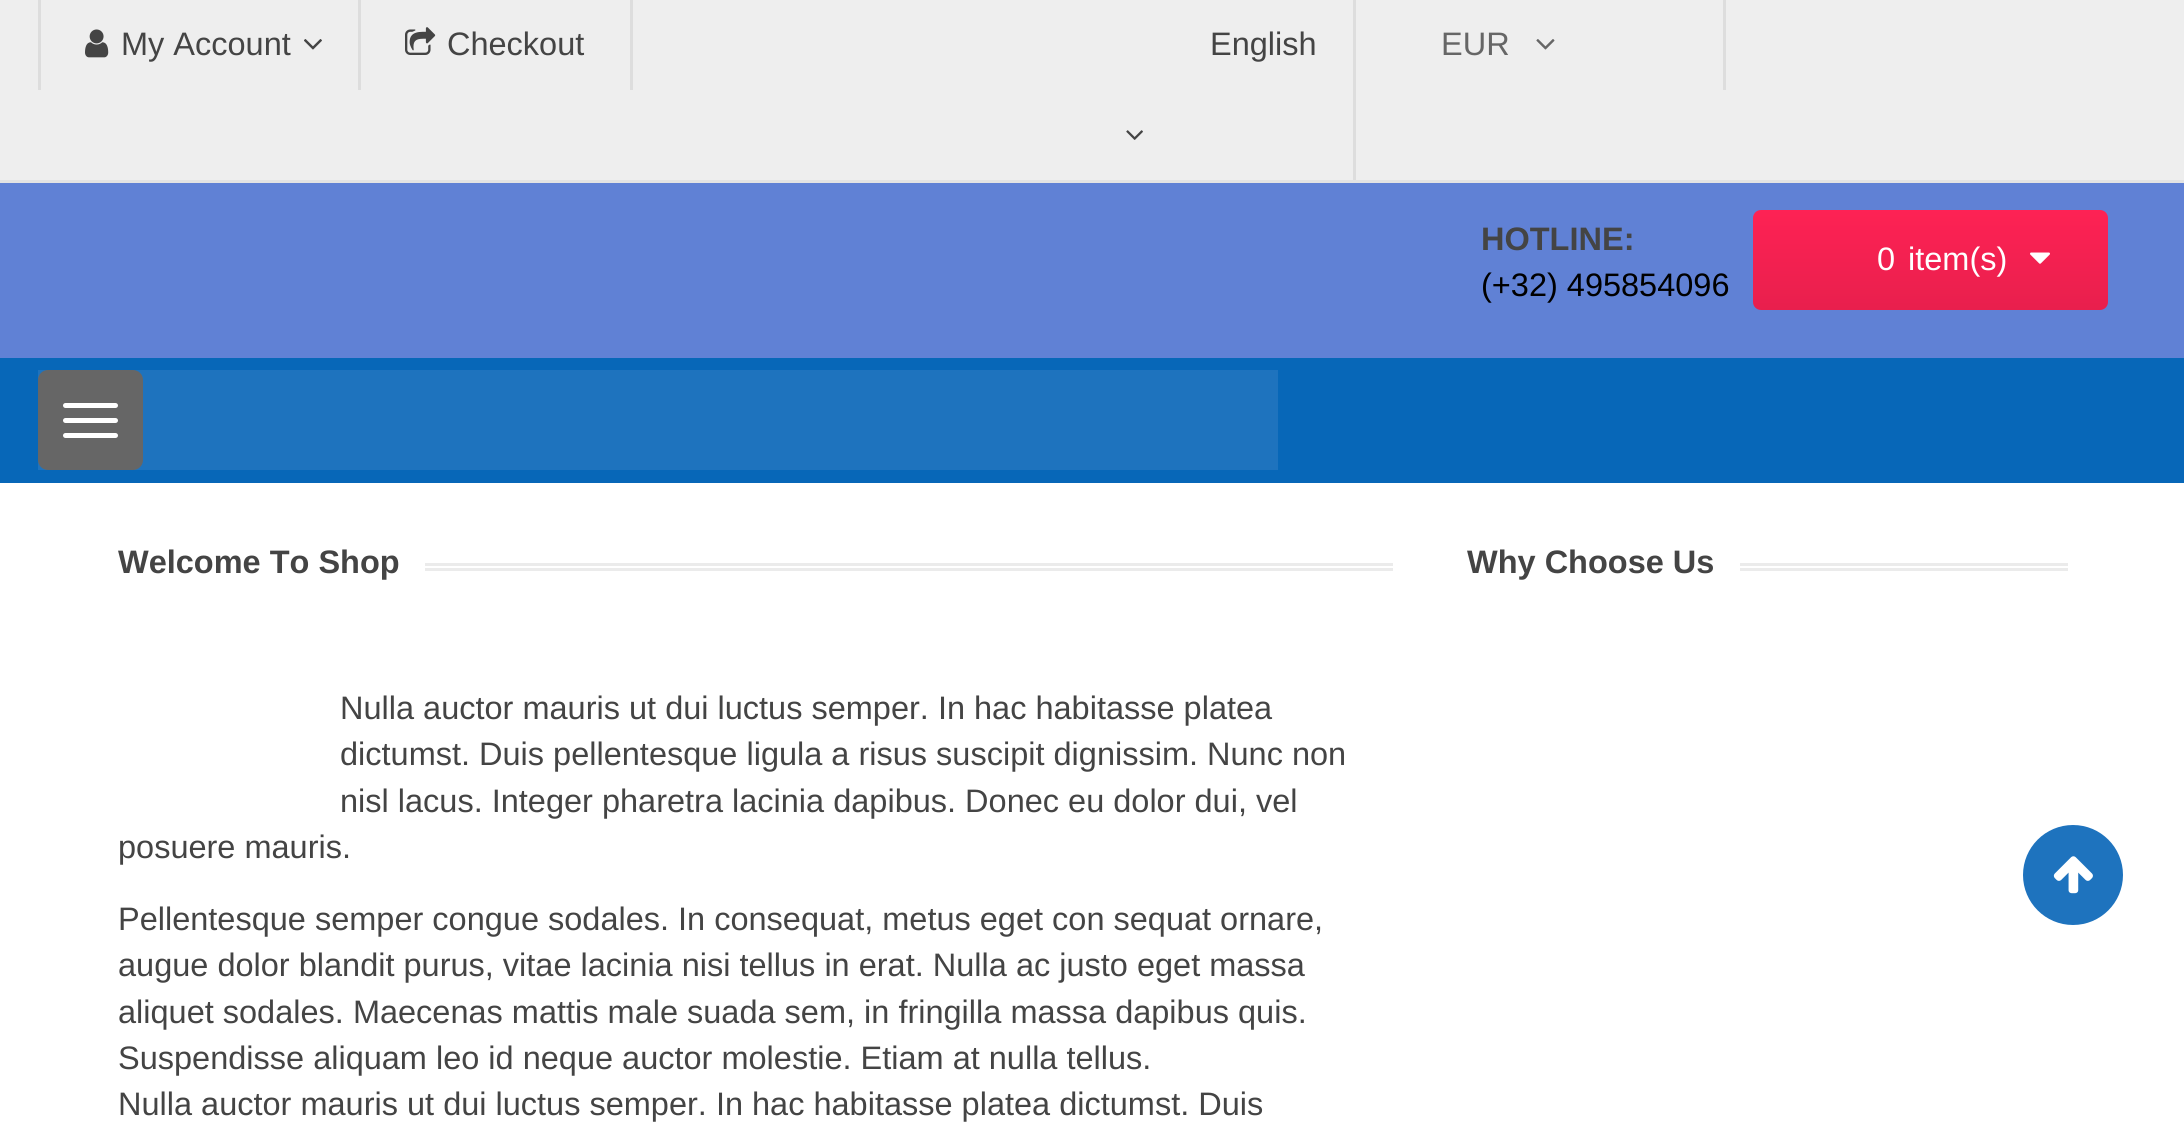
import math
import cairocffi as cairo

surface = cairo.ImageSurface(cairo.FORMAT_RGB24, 2184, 1124)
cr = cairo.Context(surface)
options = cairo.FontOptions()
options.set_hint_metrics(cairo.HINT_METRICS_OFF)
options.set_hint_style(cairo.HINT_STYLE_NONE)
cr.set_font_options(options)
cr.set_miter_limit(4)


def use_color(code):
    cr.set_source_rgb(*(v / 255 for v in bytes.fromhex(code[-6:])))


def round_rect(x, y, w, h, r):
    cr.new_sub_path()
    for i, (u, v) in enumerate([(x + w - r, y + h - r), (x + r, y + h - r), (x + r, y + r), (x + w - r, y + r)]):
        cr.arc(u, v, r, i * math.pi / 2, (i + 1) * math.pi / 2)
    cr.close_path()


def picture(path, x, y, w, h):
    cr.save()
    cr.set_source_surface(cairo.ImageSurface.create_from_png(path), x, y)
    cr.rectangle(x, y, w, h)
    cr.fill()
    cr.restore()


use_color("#ffffff")
cr.paint()
use_color("#eeeeee")
cr.rectangle(0, 0, 2184, 180)
cr.fill()
use_color("#e3e3e3")
cr.rectangle(0, 180, 2184, 3)
cr.fill()
use_color("#dddddd")
cr.rectangle(358, 0, 3, 90)
cr.fill()
cr.rectangle(38, 0, 3, 90)
cr.fill()
picture("img1.png", 85, 29, 24, 29)
cr.select_font_face("Liberation Sans")
cr.set_font_size(32.5)
use_color("#444444")
cr.move_to(121, 55)
cr.show_text("My Account")
picture("img2.png", 304, 39, 18, 11)
use_color("#dddddd")
cr.rectangle(630, 0, 3, 90)
cr.fill()
picture("img3.png", 405, 27, 31, 28)
use_color("#444444")
cr.move_to(447, 55)
cr.show_text("Checkout")
use_color("#dddddd")
cr.rectangle(1353, 0, 3, 180)
cr.fill()
use_color("#444444")
cr.move_to(1210, 55)
cr.show_text("English")
picture("img4.png", 1126, 130, 17, 10)
use_color("#dddddd")
cr.rectangle(1723, 0, 3, 90)
cr.fill()
use_color("#666666")
cr.move_to(1441, 55)
cr.show_text("EUR")
picture("img5.png", 1536, 39, 19, 11)
use_color("#6081d5")
cr.rectangle(0, 183, 2184, 175)
cr.fill()
cr.select_font_face("Liberation Sans", cairo.FONT_SLANT_NORMAL, cairo.FONT_WEIGHT_BOLD)
use_color("#444444")
cr.move_to(1481, 250)
cr.show_text("HOTLINE:")
cr.select_font_face("Liberation Sans")
use_color("#000000")
cr.move_to(1481, 296)
cr.show_text("(+32) 495854096")
gradient = cairo.LinearGradient(1930, 210, 1930, 310)
gradient.add_color_stop_rgba(0, 0.996, 0.133, 0.329, 1)
gradient.add_color_stop_rgba(1, 0.91, 0.122, 0.302, 1)
cr.set_source(gradient)
round_rect(1753, 210, 355, 100, 8)
cr.fill()
use_color("#ffffff")
cr.move_to(1877, 270)
cr.show_text("0")
cr.move_to(1908, 270)
cr.show_text("item(s)")
picture("img6.png", 2030, 252, 20, 12)
use_color("#0767b8")
cr.rectangle(0, 358, 2184, 125)
cr.fill()
use_color("#1e73be")
cr.rectangle(38, 370, 1240, 100)
cr.fill()
use_color("#666666")
round_rect(38, 370, 105, 100, 10)
cr.fill()
use_color("#ffffff")
round_rect(63, 403, 55, 5, 2.5)
cr.fill()
round_rect(63, 418, 55, 5, 2.5)
cr.fill()
round_rect(63, 433, 55, 5, 2.5)
cr.fill()
cr.select_font_face("Liberation Sans", cairo.FONT_SLANT_NORMAL, cairo.FONT_WEIGHT_BOLD)
use_color("#444444")
cr.move_to(118, 573)
cr.show_text("Welcome To Shop")
use_color("#ebebeb")
cr.rectangle(425, 563, 968, 3)
cr.fill()
cr.rectangle(425, 568, 968, 3)
cr.fill()
cr.select_font_face("Liberation Sans")
use_color("#444444")
cr.move_to(340, 719)
cr.show_text("Nulla auctor mauris ut dui luctus semper. In hac habitasse platea")
cr.move_to(340, 765)
cr.show_text("dictumst. Duis pellentesque ligula a risus suscipit dignissim. Nunc non")
cr.move_to(340, 812)
cr.show_text("nisl lacus. Integer pharetra lacinia dapibus. Donec eu dolor dui, vel")
cr.move_to(118, 858)
cr.show_text("posuere mauris.")
cr.move_to(118, 930)
cr.show_text("Pellentesque semper congue sodales. In consequat, metus eget con sequat ornare,")
cr.move_to(118, 976)
cr.show_text("augue dolor blandit purus, vitae lacinia nisi tellus in erat. Nulla ac justo eget massa")
cr.move_to(118, 1023)
cr.show_text("aliquet sodales. Maecenas mattis male suada sem, in fringilla massa dapibus quis.")
cr.move_to(118, 1069)
cr.show_text("Suspendisse aliquam leo id neque auctor molestie. Etiam at nulla tellus.")
cr.move_to(118, 1115)
cr.show_text("Nulla auctor mauris ut dui luctus semper. In hac habitasse platea dictumst. Duis")
cr.select_font_face("Liberation Sans", cairo.FONT_SLANT_NORMAL, cairo.FONT_WEIGHT_BOLD)
cr.move_to(1467, 573)
cr.show_text("Why Choose Us")
use_color("#ebebeb")
cr.rectangle(1740, 563, 328, 3)
cr.fill()
cr.rectangle(1740, 568, 328, 3)
cr.fill()
use_color("#1e73be")
cr.arc(2073, 875, 50, 0, 2 * math.pi)
cr.fill()
picture("img7.png", 2053, 856, 40, 38)
surface.write_to_png("result.png")
